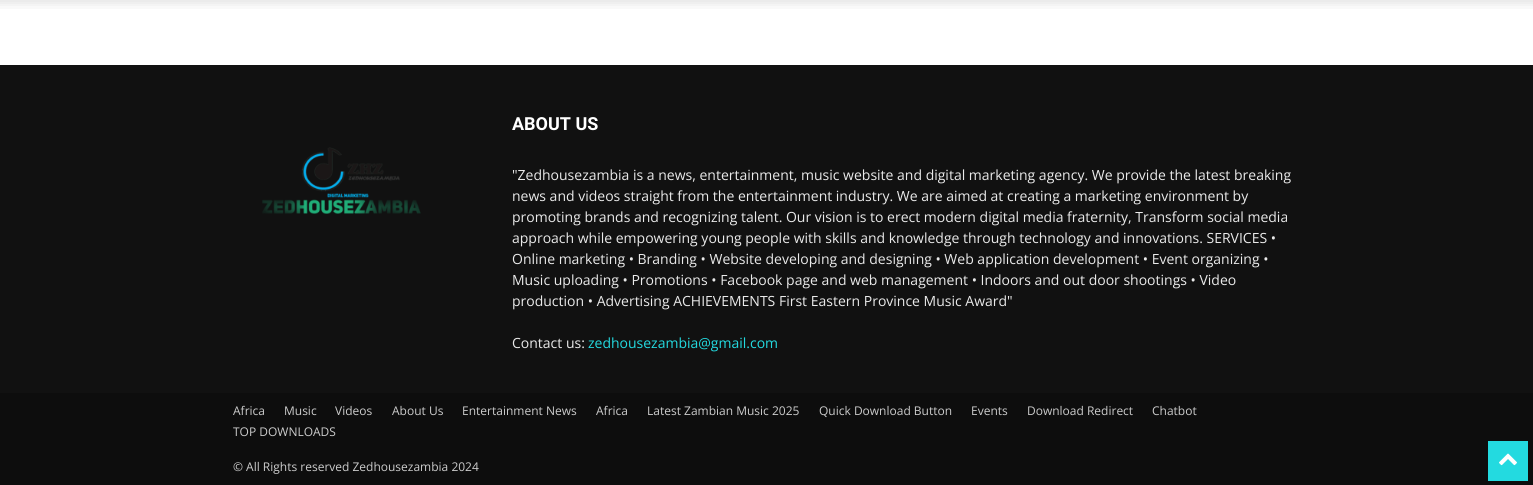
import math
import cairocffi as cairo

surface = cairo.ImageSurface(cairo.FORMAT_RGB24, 1533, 485)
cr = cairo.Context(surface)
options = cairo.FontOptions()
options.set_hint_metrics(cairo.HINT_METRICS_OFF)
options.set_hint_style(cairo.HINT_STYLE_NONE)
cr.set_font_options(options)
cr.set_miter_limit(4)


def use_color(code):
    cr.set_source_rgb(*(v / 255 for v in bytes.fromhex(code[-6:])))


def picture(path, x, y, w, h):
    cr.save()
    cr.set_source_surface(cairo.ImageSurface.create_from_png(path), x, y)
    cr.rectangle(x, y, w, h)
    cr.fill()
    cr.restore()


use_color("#ffffff")
cr.paint()
picture("img1.png", 0, 0, 1533, 9)
use_color("#111111")
cr.rectangle(0, 65, 1533, 328)
cr.fill()
picture("img2.png", 262, 147, 159, 67)
cr.select_font_face("Roboto", cairo.FONT_SLANT_NORMAL, cairo.FONT_WEIGHT_BOLD)
cr.set_font_size(18)
use_color("#ffffff")
cr.move_to(512, 130)
cr.show_text("ABOUT US")
cr.select_font_face("Open Sans")
cr.set_font_size(14)
use_color("#eaeaea")
cr.move_to(512, 180)
cr.show_text("\"Zedhousezambia is a news, entertainment, music website and digital marketing agency. We provide the latest breaking")
cr.move_to(512, 201)
cr.show_text("news and videos straight from the entertainment industry. We are aimed at creating a marketing environment by")
cr.move_to(512, 222)
cr.show_text("promoting brands and recognizing talent. Our vision is to erect modern digital media fraternity, Transform social media")
cr.move_to(512, 243)
cr.show_text("approach while empowering young people with skills and knowledge through technology and innovations. SERVICES •")
cr.move_to(512, 264)
cr.show_text("Online marketing • Branding • Website developing and designing • Web application development • Event organizing •")
cr.move_to(512, 285)
cr.show_text("Music uploading • Promotions • Facebook page and web management • Indoors and out door shootings • Video")
cr.move_to(512, 306)
cr.show_text("production • Advertising ACHIEVEMENTS First Eastern Province Music Award\"")
cr.move_to(512, 348)
cr.show_text("Contact us:")
use_color("#23dae0")
cr.move_to(588, 348)
cr.show_text("zedhousezambia@gmail.com")
use_color("#0d0d0d")
cr.rectangle(0, 393, 1533, 92)
cr.fill()
cr.set_font_size(12)
use_color("#cccccc")
cr.move_to(233, 415)
cr.show_text("Africa")
cr.move_to(284, 415)
cr.show_text("Music")
cr.move_to(335, 415)
cr.show_text("Videos")
cr.move_to(392, 415)
cr.show_text("About Us")
cr.move_to(462, 415)
cr.show_text("Entertainment News")
cr.move_to(596, 415)
cr.show_text("Africa")
cr.move_to(647, 415)
cr.show_text("Latest Zambian Music 2025")
cr.move_to(819, 415)
cr.show_text("Quick Download Button")
cr.move_to(971, 415)
cr.show_text("Events")
cr.move_to(1027, 415)
cr.show_text("Download Redirect")
cr.move_to(1152, 415)
cr.show_text("Chatbot")
cr.move_to(233, 436)
cr.show_text("TOP DOWNLOADS")
cr.move_to(233, 471)
cr.show_text("© All Rights reserved Zedhousezambia 2024")
use_color("#23dae0")
cr.rectangle(1488, 441, 40, 40)
cr.fill()
picture("img3.png", 1499, 453, 18, 13)
surface.write_to_png("result.png")
